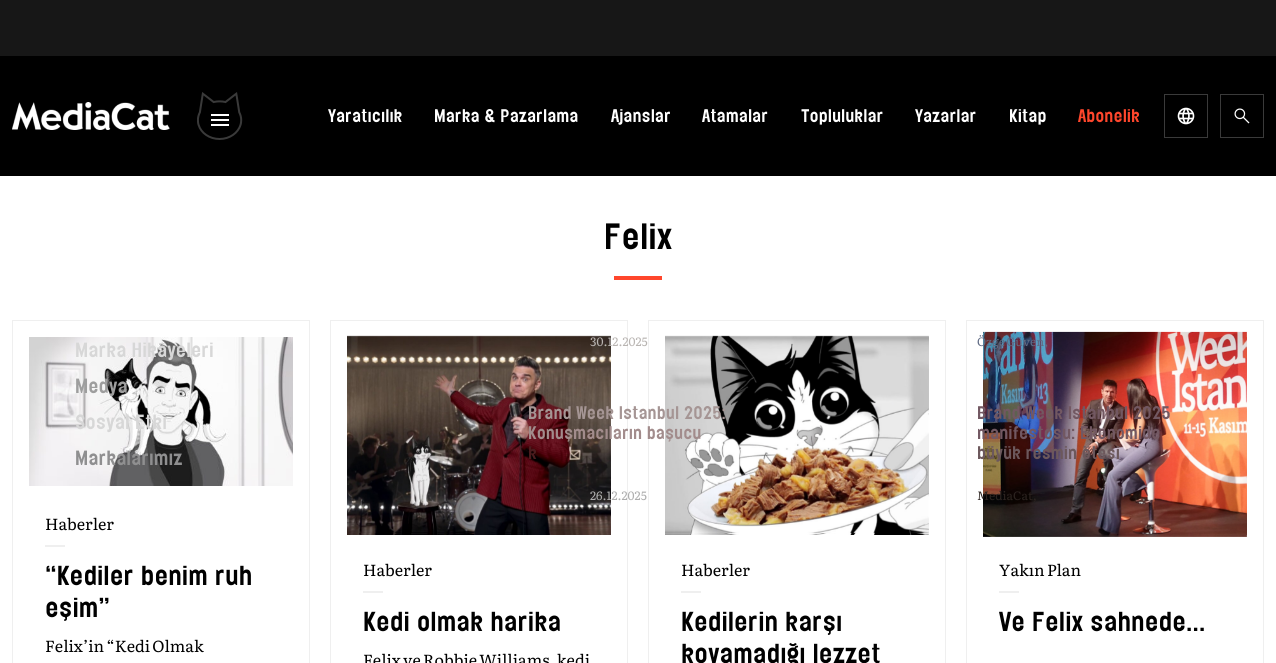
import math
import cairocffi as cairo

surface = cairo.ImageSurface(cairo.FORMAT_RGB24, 1276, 663)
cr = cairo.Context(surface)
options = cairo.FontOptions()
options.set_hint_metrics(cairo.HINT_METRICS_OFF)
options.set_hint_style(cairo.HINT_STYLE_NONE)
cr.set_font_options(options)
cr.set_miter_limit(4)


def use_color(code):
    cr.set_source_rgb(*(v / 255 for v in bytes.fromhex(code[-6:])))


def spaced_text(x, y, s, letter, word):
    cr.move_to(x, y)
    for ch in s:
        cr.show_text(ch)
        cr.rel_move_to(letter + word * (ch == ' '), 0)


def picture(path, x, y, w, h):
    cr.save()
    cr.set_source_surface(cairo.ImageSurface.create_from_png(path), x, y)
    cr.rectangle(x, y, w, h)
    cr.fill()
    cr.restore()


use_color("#ffffff")
cr.paint()
use_color("#171717")
cr.rectangle(0, 0, 1276, 56)
cr.fill()
use_color("#000000")
cr.rectangle(0, 56, 1276, 120)
cr.fill()
cr.select_font_face("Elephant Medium")
cr.set_font_size(16)
use_color("#ffffff")
cr.move_to(328, 122)
cr.show_text("Yaratıcılık")
cr.move_to(434, 122)
cr.show_text("Marka & Pazarlama")
cr.move_to(611, 122)
cr.show_text("Ajanslar")
cr.move_to(702, 122)
cr.show_text("Atamalar")
cr.move_to(801, 122)
cr.show_text("Topluluklar")
cr.move_to(915, 122)
cr.show_text("Yazarlar")
cr.move_to(1009, 122)
cr.show_text("Kitap")
use_color("#ff462c")
cr.move_to(1078, 122)
cr.show_text("Abonelik")
cr.rectangle(1164.5, 94.5, 43, 43)
use_color("#3a3a3a")
cr.set_line_width(1)
cr.stroke()
picture("img1.png", 1177, 107, 18, 18)
cr.rectangle(1220.5, 94.5, 43, 43)
cr.stroke()
picture("img2.png", 1234, 108, 16, 16)
picture("img3.png", 12, 102, 158, 28)
picture("img4.png", 197, 92, 46, 48)
cr.rectangle(12.5, 320.5, 297, 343)
use_color("#efefef")
cr.stroke()
picture("img5.png", 29, 337, 264, 149)
cr.set_font_size(18)
use_color("#d7d7d7")
cr.move_to(75, 357)
cr.show_text("Marka Hikâyeleri")
use_color("#9e9e9e")
cr.move_to(75, 393)
cr.show_text("Medya")
use_color("#d7d7d7")
cr.move_to(75, 429)
cr.show_text("Sosyal Etki")
use_color("#8f8f90")
cr.move_to(75, 465)
cr.show_text("Markalarımız")
cr.rectangle(330.5, 320.5, 297, 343)
use_color("#efefef")
cr.stroke()
picture("img6.png", 347, 337, 264, 198)
picture("img7.png", 347, 335, 264, 199)
cr.select_font_face("Literata")
cr.set_font_size(12)
use_color("#b9b5b2")
cr.move_to(590, 346)
cr.show_text("30.12.2025")
cr.rectangle(966.5, 320.5, 297, 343)
use_color("#efefef")
cr.stroke()
picture("img10.png", 1246, 337, 1, 198)
picture("img11.png", 983, 331, 264, 206)
use_color("#606b84")
spaced_text(977, 346, "Özge Güven,", 0, -1)
cr.rectangle(648.5, 320.5, 297, 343)
use_color("#efefef")
cr.stroke()
picture("img8.png", 665, 337, 264, 198)
picture("img9.png", 665, 335, 264, 199)
cr.select_font_face("Elephant Medium")
cr.set_font_size(16)
use_color("#a59594")
cr.move_to(528, 419)
cr.show_text("Brand Week Istanbul 2025:")
use_color("#a28c8c")
cr.move_to(528, 439)
cr.show_text("Konuşmacıların başucu")
use_color("#4b1c1e")
cr.move_to(528, 459)
cr.show_text("k")
cr.select_font_face("Literata")
cr.set_font_size(12)
use_color("#aeaeae")
cr.move_to(590, 500)
cr.show_text("26.12.2025")
cr.select_font_face("Elephant Medium")
cr.set_font_size(16)
use_color("#725862")
cr.move_to(977, 419)
cr.show_text("Brand Week Istanbul 2025")
cr.move_to(977, 439)
cr.show_text("manifestosu: Ekonomide")
use_color("#6c585c")
cr.move_to(977, 459)
cr.show_text("büyük resmin ötesi")
cr.select_font_face("Literata")
cr.set_font_size(12)
use_color("#2c2320")
cr.move_to(977, 500)
cr.show_text("MediaCat,")
cr.select_font_face("Elephant Medium")
cr.set_font_size(32)
use_color("#000000")
cr.move_to(604, 249)
cr.show_text("Felix")
use_color("#ff462c")
cr.rectangle(614, 276, 48, 4)
cr.fill()
cr.select_font_face("Literata")
cr.set_font_size(16)
use_color("#000000")
cr.move_to(45, 530)
cr.show_text("Haberler")
use_color("#efefef")
cr.rectangle(45, 545, 20, 2)
cr.fill()
cr.select_font_face("Elephant Medium")
cr.set_font_size(24)
use_color("#000000")
cr.move_to(45, 585)
cr.show_text("“Kediler benim ruh")
cr.move_to(45, 617)
cr.show_text("eşim”")
cr.select_font_face("Literata")
cr.set_font_size(16)
spaced_text(45, 652, "Felix’in “Kedi Olmak", 0, -1)
cr.move_to(363, 576)
cr.show_text("Haberler")
use_color("#efefef")
cr.rectangle(363, 591, 20, 2)
cr.fill()
cr.select_font_face("Elephant Medium")
cr.set_font_size(24)
use_color("#000000")
cr.move_to(363, 631)
cr.show_text("Kedi olmak harika")
cr.select_font_face("Literata")
cr.set_font_size(16)
spaced_text(363, 666, "Felix ve Robbie Williams, kedi", 0, -1)
cr.move_to(681, 576)
cr.show_text("Haberler")
use_color("#efefef")
cr.rectangle(681, 591, 20, 2)
cr.fill()
cr.select_font_face("Elephant Medium")
cr.set_font_size(24)
use_color("#000000")
cr.move_to(681, 631)
cr.show_text("Kedilerin karşı")
cr.move_to(681, 663)
cr.show_text("koyamadığı lezzet")
cr.select_font_face("Literata")
cr.set_font_size(16)
spaced_text(999, 576, "Yakın Plan", 0, -1)
use_color("#efefef")
cr.rectangle(999, 591, 20, 2)
cr.fill()
cr.select_font_face("Elephant Medium")
cr.set_font_size(24)
use_color("#000000")
cr.move_to(999, 631)
cr.show_text("Ve Felix sahnede…")
surface.write_to_png("result.png")
